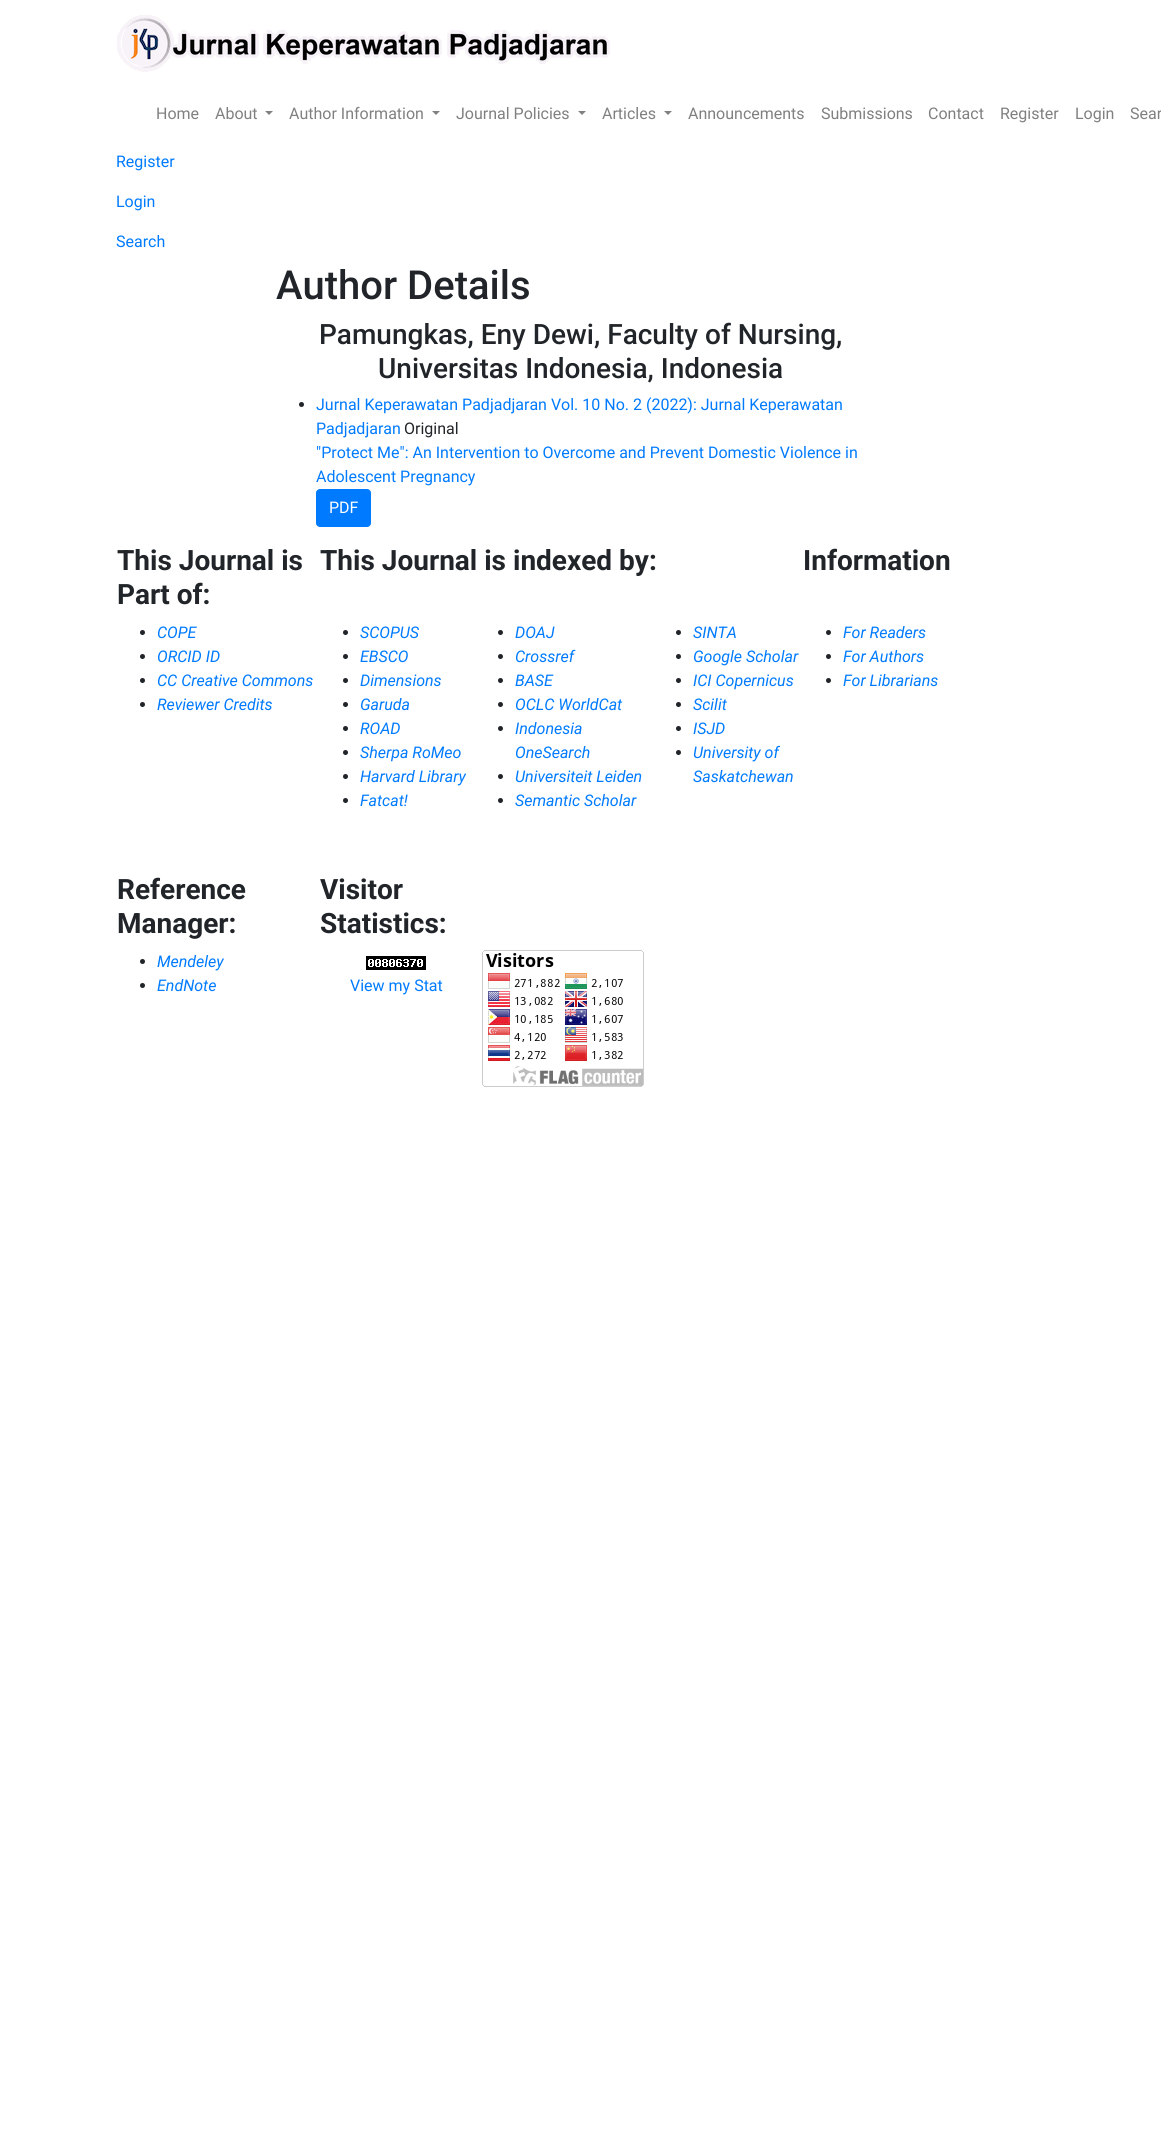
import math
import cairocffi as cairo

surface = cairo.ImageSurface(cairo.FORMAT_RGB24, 1161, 2151)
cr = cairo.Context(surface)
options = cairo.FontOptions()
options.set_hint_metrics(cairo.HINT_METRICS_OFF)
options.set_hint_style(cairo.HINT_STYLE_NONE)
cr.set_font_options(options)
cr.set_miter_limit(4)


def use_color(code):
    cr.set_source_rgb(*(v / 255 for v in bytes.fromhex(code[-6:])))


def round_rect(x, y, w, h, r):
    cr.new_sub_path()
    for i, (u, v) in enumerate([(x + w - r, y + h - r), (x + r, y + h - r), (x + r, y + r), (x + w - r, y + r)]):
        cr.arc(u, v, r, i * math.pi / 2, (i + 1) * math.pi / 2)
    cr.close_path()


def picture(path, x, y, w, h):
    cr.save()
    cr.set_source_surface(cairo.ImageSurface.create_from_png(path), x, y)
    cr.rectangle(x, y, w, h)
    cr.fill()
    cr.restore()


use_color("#ffffff")
cr.paint()
picture("img1.png", 117, 15, 493, 57)
cr.select_font_face("Roboto")
cr.set_font_size(16)
use_color("#808080")
cr.move_to(156, 119)
cr.show_text("Home")
cr.move_to(215, 119)
cr.show_text("About")
cr.new_path()
cr.move_to(265, 111)
cr.line_to(273, 111)
cr.line_to(269, 115)
cr.close_path()
cr.fill()
cr.move_to(289, 119)
cr.show_text("Author Information")
cr.new_path()
cr.move_to(432, 111)
cr.line_to(440, 111)
cr.line_to(436, 115)
cr.close_path()
cr.fill()
cr.move_to(456, 119)
cr.show_text("Journal Policies")
cr.new_path()
cr.move_to(578, 111)
cr.line_to(586, 111)
cr.line_to(582, 115)
cr.close_path()
cr.fill()
cr.move_to(602, 119)
cr.show_text("Articles")
cr.new_path()
cr.move_to(664, 111)
cr.line_to(672, 111)
cr.line_to(668, 115)
cr.close_path()
cr.fill()
cr.move_to(688, 119)
cr.show_text("Announcements")
cr.move_to(821, 119)
cr.show_text("Submissions")
cr.move_to(928, 119)
cr.show_text("Contact")
cr.move_to(1000, 119)
cr.show_text("Register")
cr.move_to(1075, 119)
cr.show_text("Login")
cr.move_to(1130, 119)
cr.show_text("Sear")
use_color("#007bff")
cr.move_to(116, 167)
cr.show_text("Register")
cr.move_to(116, 207)
cr.show_text("Login")
cr.move_to(116, 247)
cr.show_text("Search")
cr.select_font_face("Roboto Medium")
cr.set_font_size(40)
use_color("#212529")
cr.move_to(276, 299)
cr.show_text("Author Details")
cr.set_font_size(28)
cr.move_to(319, 344)
cr.show_text("Pamungkas, Eny Dewi, Faculty of Nursing,")
cr.move_to(378, 378)
cr.show_text("Universitas Indonesia, Indonesia")
cr.new_path()
cr.arc(301.5, 404.5, 2.5, 0, 2 * math.pi)
cr.fill()
cr.select_font_face("Roboto")
cr.set_font_size(16)
use_color("#007bff")
cr.move_to(316, 410)
cr.show_text("Jurnal Keperawatan Padjadjaran Vol. 10 No. 2 (2022): Jurnal Keperawatan")
cr.move_to(316, 434)
cr.show_text("Padjadjaran")
use_color("#212529")
cr.move_to(404, 434)
cr.show_text("Original")
use_color("#007bff")
cr.move_to(316, 458)
cr.show_text("\"Protect Me\": An Intervention to Overcome and Prevent Domestic Violence in")
cr.move_to(316, 482)
cr.show_text("Adolescent Pregnancy")
round_rect(316.5, 489.5, 54, 37, 3.5)
cr.fill_preserve()
cr.set_line_width(1)
cr.stroke()
use_color("#ffffff")
cr.move_to(329, 513)
cr.show_text("PDF")
cr.select_font_face("Roboto", cairo.FONT_SLANT_NORMAL, cairo.FONT_WEIGHT_BOLD)
cr.set_font_size(28)
use_color("#212529")
cr.move_to(117, 570)
cr.show_text("This Journal is")
cr.move_to(117, 604)
cr.show_text("Part of:")
cr.move_to(320, 570)
cr.show_text("This Journal is indexed by:")
cr.move_to(803, 570)
cr.show_text("Information")
cr.new_path()
cr.arc(142.5, 632.5, 2.5, 0, 2 * math.pi)
cr.fill()
cr.select_font_face("Roboto", cairo.FONT_SLANT_ITALIC)
cr.set_font_size(16)
use_color("#007bff")
cr.move_to(157, 638)
cr.show_text("COPE")
use_color("#212529")
cr.new_path()
cr.arc(142.5, 656.5, 2.5, 0, 2 * math.pi)
cr.fill()
use_color("#007bff")
cr.move_to(157, 662)
cr.show_text("ORCID ID")
use_color("#212529")
cr.new_path()
cr.arc(142.5, 680.5, 2.5, 0, 2 * math.pi)
cr.fill()
use_color("#007bff")
cr.move_to(157, 686)
cr.show_text("CC Creative Commons")
use_color("#212529")
cr.new_path()
cr.arc(142.5, 704.5, 2.5, 0, 2 * math.pi)
cr.fill()
use_color("#007bff")
cr.move_to(157, 710)
cr.show_text("Reviewer Credits")
use_color("#212529")
cr.new_path()
cr.arc(345.5, 632.5, 2.5, 0, 2 * math.pi)
cr.fill()
use_color("#007bff")
cr.move_to(360, 638)
cr.show_text("SCOPUS")
use_color("#212529")
cr.new_path()
cr.arc(345.5, 656.5, 2.5, 0, 2 * math.pi)
cr.fill()
use_color("#007bff")
cr.move_to(360, 662)
cr.show_text("EBSCO")
use_color("#212529")
cr.new_path()
cr.arc(345.5, 680.5, 2.5, 0, 2 * math.pi)
cr.fill()
use_color("#007bff")
cr.move_to(360, 686)
cr.show_text("Dimensions")
use_color("#212529")
cr.new_path()
cr.arc(345.5, 704.5, 2.5, 0, 2 * math.pi)
cr.fill()
use_color("#007bff")
cr.move_to(360, 710)
cr.show_text("Garuda")
use_color("#212529")
cr.new_path()
cr.arc(345.5, 728.5, 2.5, 0, 2 * math.pi)
cr.fill()
use_color("#007bff")
cr.move_to(360, 734)
cr.show_text("ROAD")
use_color("#212529")
cr.new_path()
cr.arc(345.5, 752.5, 2.5, 0, 2 * math.pi)
cr.fill()
use_color("#007bff")
cr.move_to(360, 758)
cr.show_text("Sherpa RoMeo")
use_color("#212529")
cr.new_path()
cr.arc(345.5, 776.5, 2.5, 0, 2 * math.pi)
cr.fill()
use_color("#007bff")
cr.move_to(360, 782)
cr.show_text("Harvard Library")
use_color("#212529")
cr.new_path()
cr.arc(345.5, 800.5, 2.5, 0, 2 * math.pi)
cr.fill()
use_color("#007bff")
cr.move_to(360, 806)
cr.show_text("Fatcat!")
use_color("#212529")
cr.new_path()
cr.arc(500.5, 632.5, 2.5, 0, 2 * math.pi)
cr.fill()
use_color("#007bff")
cr.move_to(515, 638)
cr.show_text("DOAJ")
use_color("#212529")
cr.new_path()
cr.arc(500.5, 656.5, 2.5, 0, 2 * math.pi)
cr.fill()
use_color("#007bff")
cr.move_to(515, 662)
cr.show_text("Crossref")
use_color("#212529")
cr.new_path()
cr.arc(500.5, 680.5, 2.5, 0, 2 * math.pi)
cr.fill()
use_color("#007bff")
cr.move_to(515, 686)
cr.show_text("BASE")
use_color("#212529")
cr.new_path()
cr.arc(500.5, 704.5, 2.5, 0, 2 * math.pi)
cr.fill()
use_color("#007bff")
cr.move_to(515, 710)
cr.show_text("OCLC WorldCat")
use_color("#212529")
cr.new_path()
cr.arc(500.5, 728.5, 2.5, 0, 2 * math.pi)
cr.fill()
use_color("#007bff")
cr.move_to(515, 734)
cr.show_text("Indonesia")
cr.move_to(515, 758)
cr.show_text("OneSearch")
use_color("#212529")
cr.new_path()
cr.arc(500.5, 776.5, 2.5, 0, 2 * math.pi)
cr.fill()
use_color("#007bff")
cr.move_to(515, 782)
cr.show_text("Universiteit Leiden")
use_color("#212529")
cr.new_path()
cr.arc(500.5, 800.5, 2.5, 0, 2 * math.pi)
cr.fill()
use_color("#007bff")
cr.move_to(515, 806)
cr.show_text("Semantic Scholar")
use_color("#212529")
cr.new_path()
cr.arc(678.5, 632.5, 2.5, 0, 2 * math.pi)
cr.fill()
use_color("#007bff")
cr.move_to(693, 638)
cr.show_text("SINTA")
use_color("#212529")
cr.new_path()
cr.arc(678.5, 656.5, 2.5, 0, 2 * math.pi)
cr.fill()
use_color("#007bff")
cr.move_to(693, 662)
cr.show_text("Google Scholar")
use_color("#212529")
cr.new_path()
cr.arc(678.5, 680.5, 2.5, 0, 2 * math.pi)
cr.fill()
use_color("#007bff")
cr.move_to(693, 686)
cr.show_text("ICI Copernicus")
use_color("#212529")
cr.new_path()
cr.arc(678.5, 704.5, 2.5, 0, 2 * math.pi)
cr.fill()
use_color("#007bff")
cr.move_to(693, 710)
cr.show_text("Scilit")
use_color("#212529")
cr.new_path()
cr.arc(678.5, 728.5, 2.5, 0, 2 * math.pi)
cr.fill()
use_color("#007bff")
cr.move_to(693, 734)
cr.show_text("ISJD")
use_color("#212529")
cr.new_path()
cr.arc(678.5, 752.5, 2.5, 0, 2 * math.pi)
cr.fill()
use_color("#007bff")
cr.move_to(693, 758)
cr.show_text("University of")
cr.move_to(693, 782)
cr.show_text("Saskatchewan")
use_color("#212529")
cr.new_path()
cr.arc(828.5, 632.5, 2.5, 0, 2 * math.pi)
cr.fill()
use_color("#007bff")
cr.move_to(843, 638)
cr.show_text("For Readers")
use_color("#212529")
cr.new_path()
cr.arc(828.5, 656.5, 2.5, 0, 2 * math.pi)
cr.fill()
use_color("#007bff")
cr.move_to(843, 662)
cr.show_text("For Authors")
use_color("#212529")
cr.new_path()
cr.arc(828.5, 680.5, 2.5, 0, 2 * math.pi)
cr.fill()
use_color("#007bff")
cr.move_to(843, 686)
cr.show_text("For Librarians")
cr.select_font_face("Roboto", cairo.FONT_SLANT_NORMAL, cairo.FONT_WEIGHT_BOLD)
cr.set_font_size(28)
use_color("#212529")
cr.move_to(117, 899)
cr.show_text("Reference")
cr.move_to(117, 933)
cr.show_text("Manager:")
cr.move_to(320, 899)
cr.show_text("Visitor")
cr.move_to(320, 933)
cr.show_text("Statistics:")
cr.new_path()
cr.arc(142.5, 961.5, 2.5, 0, 2 * math.pi)
cr.fill()
cr.select_font_face("Roboto", cairo.FONT_SLANT_ITALIC)
cr.set_font_size(16)
use_color("#007bff")
cr.move_to(157, 967)
cr.show_text("Mendeley")
use_color("#212529")
cr.new_path()
cr.arc(142.5, 985.5, 2.5, 0, 2 * math.pi)
cr.fill()
use_color("#007bff")
cr.move_to(157, 991)
cr.show_text("EndNote")
picture("img2.png", 366, 956, 60, 14)
cr.select_font_face("Roboto")
cr.move_to(350, 991)
cr.show_text("View my Stat")
picture("img3.png", 482, 950, 162, 137)
surface.write_to_png("result.png")
